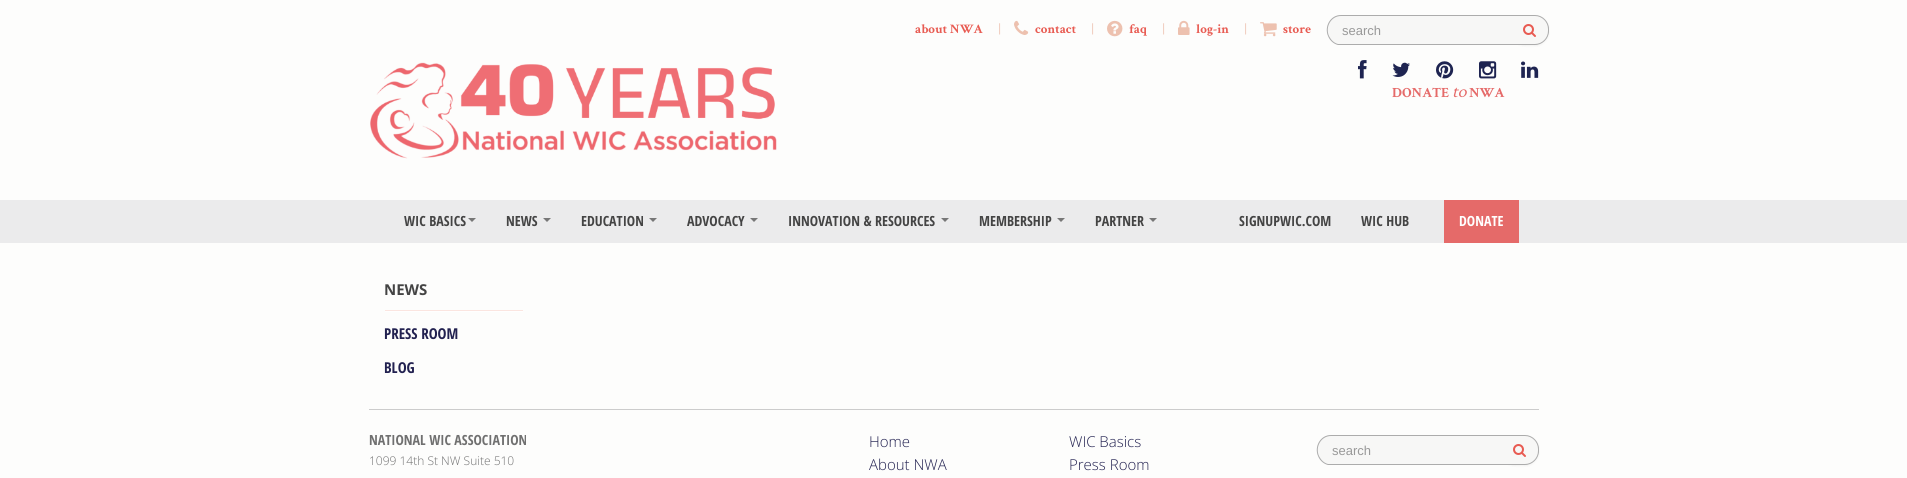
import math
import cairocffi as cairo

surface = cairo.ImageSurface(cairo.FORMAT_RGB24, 1907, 478)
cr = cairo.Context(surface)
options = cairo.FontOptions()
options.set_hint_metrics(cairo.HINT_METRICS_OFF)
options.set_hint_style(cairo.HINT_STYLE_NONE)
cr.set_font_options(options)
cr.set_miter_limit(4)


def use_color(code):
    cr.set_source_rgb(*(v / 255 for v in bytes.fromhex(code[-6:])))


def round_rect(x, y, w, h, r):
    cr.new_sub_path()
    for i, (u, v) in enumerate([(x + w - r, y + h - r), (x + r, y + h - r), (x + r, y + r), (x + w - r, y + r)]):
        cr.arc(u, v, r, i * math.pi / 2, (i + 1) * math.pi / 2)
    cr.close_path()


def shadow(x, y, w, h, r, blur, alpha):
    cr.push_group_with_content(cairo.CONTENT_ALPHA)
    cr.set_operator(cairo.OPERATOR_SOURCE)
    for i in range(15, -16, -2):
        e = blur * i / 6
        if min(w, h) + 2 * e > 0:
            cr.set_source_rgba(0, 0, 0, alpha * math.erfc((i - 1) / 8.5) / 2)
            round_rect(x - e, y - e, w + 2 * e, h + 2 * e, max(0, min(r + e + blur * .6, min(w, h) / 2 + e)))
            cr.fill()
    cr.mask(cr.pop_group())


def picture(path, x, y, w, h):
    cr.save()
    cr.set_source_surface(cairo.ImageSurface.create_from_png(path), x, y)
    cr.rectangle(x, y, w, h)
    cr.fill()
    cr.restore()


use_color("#fdfdfc")
cr.paint()
cr.select_font_face("Crimson Text", cairo.FONT_SLANT_NORMAL, cairo.FONT_WEIGHT_BOLD)
cr.set_font_size(13)
use_color("#e85b52")
cr.move_to(915, 33)
cr.show_text("about NWA")
cr.select_font_face("Crimson Text")
use_color("#edc1af")
cr.move_to(998, 33)
cr.show_text("|")
picture("img1.png", 1014, 20, 15, 15)
cr.select_font_face("Crimson Text", cairo.FONT_SLANT_NORMAL, cairo.FONT_WEIGHT_BOLD)
use_color("#e85b52")
cr.move_to(1035, 33)
cr.show_text("contact")
cr.select_font_face("Crimson Text")
use_color("#edc1af")
cr.move_to(1091, 33)
cr.show_text("|")
picture("img2.png", 1107, 20, 16, 17)
cr.select_font_face("Crimson Text", cairo.FONT_SLANT_NORMAL, cairo.FONT_WEIGHT_BOLD)
use_color("#e85b52")
cr.move_to(1129, 33)
cr.show_text("faq")
cr.select_font_face("Crimson Text")
use_color("#edc1af")
cr.move_to(1162, 33)
cr.show_text("|")
picture("img3.png", 1178, 20, 12, 15)
cr.select_font_face("Crimson Text", cairo.FONT_SLANT_NORMAL, cairo.FONT_WEIGHT_BOLD)
use_color("#e85b52")
cr.move_to(1196, 33)
cr.show_text("log-in")
cr.select_font_face("Crimson Text")
use_color("#edc1af")
cr.move_to(1244, 33)
cr.show_text("|")
picture("img4.png", 1260, 22, 17, 15)
cr.select_font_face("Crimson Text", cairo.FONT_SLANT_NORMAL, cairo.FONT_WEIGHT_BOLD)
use_color("#e85b52")
cr.move_to(1283, 33)
cr.show_text("store")
use_color("#000000")
shadow(1511, 16, 38, 30, 14, 1, 0.05)
use_color("#f7f7f6")
cr.new_path()
cr.move_to(1511, 15)
cr.line_to(1535, 15)
cr.curve_to(1542.5, 15, 1549, 21.5, 1549, 29)
cr.line_to(1549, 31)
cr.curve_to(1549, 38.5, 1542.5, 45, 1535, 45)
cr.line_to(1511, 45)
cr.close_path()
cr.fill()
use_color("#acacac")
cr.set_fill_rule(cairo.FILL_RULE_EVEN_ODD)
cr.new_path()
cr.move_to(1511, 15)
cr.line_to(1535, 15)
cr.curve_to(1542.5, 15, 1549, 21.5, 1549, 29)
cr.line_to(1549, 31)
cr.curve_to(1549, 38.5, 1542.5, 45, 1535, 45)
cr.line_to(1511, 45)
cr.close_path()
cr.move_to(1511, 16)
cr.line_to(1535, 16)
cr.curve_to(1542, 16, 1548, 22, 1548, 29)
cr.line_to(1548, 31)
cr.curve_to(1548, 38, 1542, 44, 1535, 44)
cr.line_to(1511, 44)
cr.close_path()
cr.fill()
use_color("#f7f7f6")
cr.new_path()
cr.move_to(1341, 15)
cr.line_to(1512, 15)
cr.line_to(1512, 45)
cr.line_to(1341, 45)
cr.curve_to(1333.5, 45, 1327, 38.5, 1327, 31)
cr.line_to(1327, 29)
cr.curve_to(1327, 21.5, 1333.5, 15, 1341, 15)
cr.close_path()
cr.fill()
use_color("#acacac")
cr.new_path()
cr.move_to(1341, 15)
cr.line_to(1512, 15)
cr.line_to(1512, 45)
cr.line_to(1338, 45)
cr.curve_to(1334, 44, 1330, 41, 1328, 36)
cr.curve_to(1324, 27, 1330, 15, 1341, 15)
cr.close_path()
cr.move_to(1341, 16)
cr.line_to(1512, 16)
cr.line_to(1512, 44)
cr.line_to(1338, 44)
cr.curve_to(1334, 43, 1331, 40, 1329, 36)
cr.curve_to(1325, 27, 1331, 16, 1341, 16)
cr.close_path()
cr.fill()
cr.select_font_face("Liberation Sans")
use_color("#999999")
cr.move_to(1342, 35)
cr.show_text("search")
picture("img5.png", 1523, 24, 13, 13)
picture("img6.png", 370, 62, 407, 97)
picture("img7.png", 1358, 60, 9, 19)
picture("img8.png", 1392, 62, 18, 15)
picture("img9.png", 1436, 61, 18, 18)
picture("img10.png", 1479, 61, 18, 18)
picture("img11.png", 1521, 61, 18, 17)
cr.select_font_face("Crimson Text", cairo.FONT_SLANT_NORMAL, cairo.FONT_WEIGHT_BOLD)
cr.set_font_size(14)
use_color("#e56a69")
cr.move_to(1392, 97)
cr.show_text("DONATE")
cr.select_font_face("Crimson Text", cairo.FONT_SLANT_ITALIC)
cr.set_font_size(18)
cr.move_to(1452, 97)
cr.show_text("to")
cr.select_font_face("Crimson Text", cairo.FONT_SLANT_NORMAL, cairo.FONT_WEIGHT_BOLD)
cr.set_font_size(14)
cr.move_to(1469, 97)
cr.show_text("NWA")
use_color("#ebebec")
cr.rectangle(0, 200, 1907, 43)
cr.fill()
cr.select_font_face("Open Sans Condensed", cairo.FONT_SLANT_NORMAL, cairo.FONT_WEIGHT_BOLD)
use_color("#444444")
cr.move_to(404, 226)
cr.show_text("WIC BASICS")
use_color("#777777")
cr.set_fill_rule(cairo.FILL_RULE_WINDING)
cr.new_path()
cr.move_to(468, 218)
cr.line_to(476, 218)
cr.line_to(472, 222)
cr.close_path()
cr.fill()
use_color("#444444")
cr.move_to(506, 226)
cr.show_text("NEWS")
use_color("#777777")
cr.new_path()
cr.move_to(543, 218)
cr.line_to(551, 218)
cr.line_to(547, 222)
cr.close_path()
cr.fill()
use_color("#444444")
cr.move_to(581, 226)
cr.show_text("EDUCATION")
use_color("#777777")
cr.new_path()
cr.move_to(649, 218)
cr.line_to(657, 218)
cr.line_to(653, 222)
cr.close_path()
cr.fill()
use_color("#444444")
cr.move_to(687, 226)
cr.show_text("ADVOCACY")
use_color("#777777")
cr.new_path()
cr.move_to(750, 218)
cr.line_to(758, 218)
cr.line_to(754, 222)
cr.close_path()
cr.fill()
use_color("#444444")
cr.move_to(788, 226)
cr.show_text("INNOVATION & RESOURCES")
use_color("#777777")
cr.new_path()
cr.move_to(941, 218)
cr.line_to(949, 218)
cr.line_to(945, 222)
cr.close_path()
cr.fill()
use_color("#444444")
cr.move_to(979, 226)
cr.show_text("MEMBERSHIP")
use_color("#777777")
cr.new_path()
cr.move_to(1057, 218)
cr.line_to(1065, 218)
cr.line_to(1061, 222)
cr.close_path()
cr.fill()
use_color("#444444")
cr.move_to(1095, 226)
cr.show_text("PARTNER")
use_color("#777777")
cr.new_path()
cr.move_to(1149, 218)
cr.line_to(1157, 218)
cr.line_to(1153, 222)
cr.close_path()
cr.fill()
use_color("#444444")
cr.move_to(1239, 226)
cr.show_text("SIGNUPWIC.COM")
cr.move_to(1361, 226)
cr.show_text("WIC HUB")
use_color("#e56a69")
cr.rectangle(1444, 200, 75, 43)
cr.fill()
use_color("#ffffff")
cr.move_to(1459, 226)
cr.show_text("DONATE")
cr.select_font_face("Open Sans", cairo.FONT_SLANT_NORMAL, cairo.FONT_WEIGHT_BOLD)
cr.set_font_size(15)
use_color("#444444")
cr.move_to(384, 295)
cr.show_text("NEWS")
use_color("#fbe5e0")
cr.rectangle(385, 310, 138, 1)
cr.fill()
use_color("#ffffff")
cr.rectangle(385, 311, 138, 1)
cr.fill()
cr.select_font_face("Open Sans Condensed", cairo.FONT_SLANT_NORMAL, cairo.FONT_WEIGHT_BOLD)
use_color("#222150")
cr.move_to(384, 339)
cr.show_text("PRESS ROOM")
cr.move_to(384, 373)
cr.show_text("BLOG")
use_color("#cccccc")
cr.rectangle(369, 409, 1170, 1)
cr.fill()
cr.set_font_size(14)
use_color("#707070")
cr.move_to(369, 445)
cr.show_text("NATIONAL WIC ASSOCIATION")
cr.select_font_face("Open Sans Light")
cr.set_font_size(12)
cr.move_to(369, 465)
cr.show_text("1099 14th St NW Suite 510")
cr.set_font_size(15)
use_color("#222150")
cr.move_to(869, 447)
cr.show_text("Home")
cr.move_to(869, 470)
cr.show_text("About NWA")
cr.move_to(1069, 447)
cr.show_text("WIC Basics")
cr.move_to(1069, 470)
cr.show_text("Press Room")
use_color("#000000")
shadow(1501, 436, 38, 30, 14, 1, 0.05)
use_color("#f7f7f6")
cr.new_path()
cr.move_to(1501, 435)
cr.line_to(1525, 435)
cr.curve_to(1532.5, 435, 1539, 441.5, 1539, 449)
cr.line_to(1539, 451)
cr.curve_to(1539, 458.5, 1532.5, 465, 1525, 465)
cr.line_to(1501, 465)
cr.close_path()
cr.fill()
use_color("#acacac")
cr.set_fill_rule(cairo.FILL_RULE_EVEN_ODD)
cr.new_path()
cr.move_to(1501, 435)
cr.line_to(1525, 435)
cr.curve_to(1532.5, 435, 1539, 441.5, 1539, 449)
cr.line_to(1539, 451)
cr.curve_to(1539, 458.5, 1532.5, 465, 1525, 465)
cr.line_to(1501, 465)
cr.close_path()
cr.move_to(1501, 436)
cr.line_to(1525, 436)
cr.curve_to(1532, 436, 1538, 442, 1538, 449)
cr.line_to(1538, 451)
cr.curve_to(1538, 458, 1532, 464, 1525, 464)
cr.line_to(1501, 464)
cr.close_path()
cr.fill()
use_color("#f7f7f6")
cr.new_path()
cr.move_to(1331, 435)
cr.line_to(1502, 435)
cr.line_to(1502, 465)
cr.line_to(1331, 465)
cr.curve_to(1323.5, 465, 1317, 458.5, 1317, 451)
cr.line_to(1317, 449)
cr.curve_to(1317, 441.5, 1323.5, 435, 1331, 435)
cr.close_path()
cr.fill()
use_color("#acacac")
cr.new_path()
cr.move_to(1331, 435)
cr.line_to(1502, 435)
cr.line_to(1502, 465)
cr.line_to(1328, 465)
cr.curve_to(1324, 464, 1320, 461, 1318, 456)
cr.curve_to(1314, 447, 1320, 435, 1331, 435)
cr.close_path()
cr.move_to(1331, 436)
cr.line_to(1502, 436)
cr.line_to(1502, 464)
cr.line_to(1328, 464)
cr.curve_to(1324, 463, 1321, 460, 1319, 456)
cr.curve_to(1315, 447, 1321, 436, 1331, 436)
cr.close_path()
cr.fill()
cr.select_font_face("Liberation Sans")
cr.set_font_size(13)
use_color("#999999")
cr.move_to(1332, 455)
cr.show_text("search")
picture("img5.png", 1513, 444, 13, 13)
surface.write_to_png("result.png")
